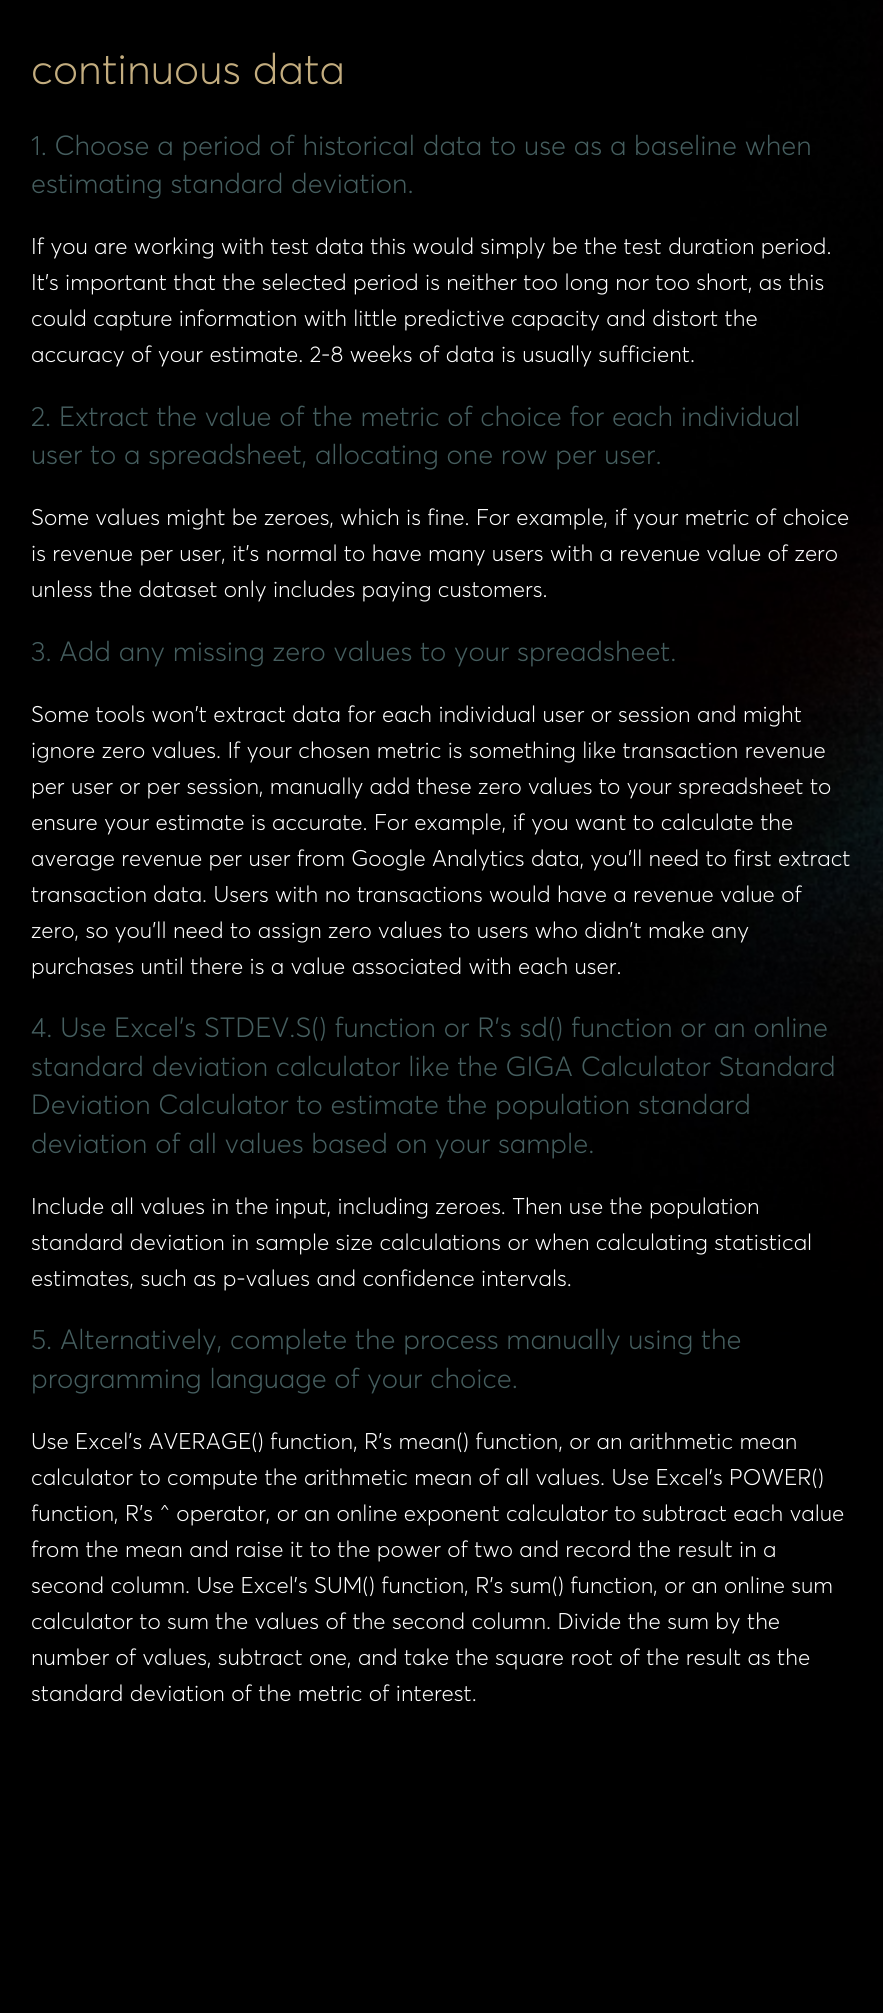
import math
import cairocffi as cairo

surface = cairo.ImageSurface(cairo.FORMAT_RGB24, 883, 2013)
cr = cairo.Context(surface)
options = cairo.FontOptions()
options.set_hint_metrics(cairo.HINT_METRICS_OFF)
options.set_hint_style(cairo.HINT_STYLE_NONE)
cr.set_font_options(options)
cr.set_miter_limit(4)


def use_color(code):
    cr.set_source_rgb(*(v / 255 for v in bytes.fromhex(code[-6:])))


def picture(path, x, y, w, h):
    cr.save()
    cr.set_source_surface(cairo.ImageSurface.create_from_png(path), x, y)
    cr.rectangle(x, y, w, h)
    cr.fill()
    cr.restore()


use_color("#ffffff")
cr.paint()
picture("img1.png", 0, 0, 883, 2013)
cr.select_font_face("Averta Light")
cr.set_font_size(42.5)
use_color("#c3ad7f")
cr.move_to(31, 84)
cr.show_text("continuous data")
cr.set_font_size(27.5)
use_color("#455e5f")
cr.move_to(31, 155)
cr.show_text("1. Choose a period of historical data to use as a baseline when")
cr.move_to(31, 193)
cr.show_text("estimating standard deviation.")
cr.set_font_size(22.5)
use_color("#ffffff")
cr.move_to(31, 254)
cr.show_text("If you are working with test data this would simply be the test duration period.")
cr.move_to(31, 290)
cr.show_text("It’s important that the selected period is neither too long nor too short, as this")
cr.move_to(31, 326)
cr.show_text("could capture information with little predictive capacity and distort the")
cr.move_to(31, 362)
cr.show_text("accuracy of your estimate. 2-8 weeks of data is usually sufficient.")
cr.set_font_size(27.5)
use_color("#455e5f")
cr.move_to(31, 426)
cr.show_text("2. Extract the value of the metric of choice for each individual")
cr.move_to(31, 464)
cr.show_text("user to a spreadsheet, allocating one row per user.")
cr.set_font_size(22.5)
use_color("#ffffff")
cr.move_to(31, 525)
cr.show_text("Some values might be zeroes, which is fine. For example, if your metric of choice")
cr.move_to(31, 561)
cr.show_text("is revenue per user, it’s normal to have many users with a revenue value of zero")
cr.move_to(31, 597)
cr.show_text("unless the dataset only includes paying customers.")
cr.set_font_size(27.5)
use_color("#455e5f")
cr.move_to(31, 661)
cr.show_text("3. Add any missing zero values to your spreadsheet.")
cr.set_font_size(22.5)
use_color("#ffffff")
cr.move_to(31, 722)
cr.show_text("Some tools won’t extract data for each individual user or session and might")
cr.move_to(31, 758)
cr.show_text("ignore zero values. If your chosen metric is something like transaction revenue")
cr.move_to(31, 794)
cr.show_text("per user or per session, manually add these zero values to your spreadsheet to")
cr.move_to(31, 830)
cr.show_text("ensure your estimate is accurate. For example, if you want to calculate the")
cr.move_to(31, 866)
cr.show_text("average revenue per user from Google Analytics data, you’ll need to first extract")
cr.move_to(31, 902)
cr.show_text("transaction data. Users with no transactions would have a revenue value of")
cr.move_to(31, 938)
cr.show_text("zero, so you’ll need to assign zero values to users who didn’t make any")
cr.move_to(31, 974)
cr.show_text("purchases until there is a value associated with each user.")
cr.set_font_size(27.5)
use_color("#455e5f")
cr.move_to(31, 1037)
cr.show_text("4. Use Excel's STDEV.S() function or R's sd() function or an online")
cr.move_to(31, 1076)
cr.show_text("standard deviation calculator like the GIGA Calculator Standard")
cr.move_to(31, 1114)
cr.show_text("Deviation Calculator to estimate the population standard")
cr.move_to(31, 1153)
cr.show_text("deviation of all values based on your sample.")
cr.set_font_size(22.5)
use_color("#ffffff")
cr.move_to(31, 1214)
cr.show_text("Include all values in the input, including zeroes. Then use the population")
cr.move_to(31, 1250)
cr.show_text("standard deviation in sample size calculations or when calculating statistical")
cr.move_to(31, 1286)
cr.show_text("estimates, such as p-values and confidence intervals.")
cr.set_font_size(27.5)
use_color("#455e5f")
cr.move_to(31, 1349)
cr.show_text("5. Alternatively, complete the process manually using the")
cr.move_to(31, 1388)
cr.show_text("programming language of your choice.")
cr.set_font_size(22.5)
use_color("#ffffff")
cr.move_to(31, 1449)
cr.show_text("Use Excel’s AVERAGE() function, R’s mean() function, or an arithmetic mean")
cr.move_to(31, 1485)
cr.show_text("calculator to compute the arithmetic mean of all values. Use Excel’s POWER()")
cr.move_to(31, 1521)
cr.show_text("function, R’s ^ operator, or an online exponent calculator to subtract each value")
cr.move_to(31, 1557)
cr.show_text("from the mean and raise it to the power of two and record the result in a")
cr.move_to(31, 1593)
cr.show_text("second column. Use Excel’s SUM() function, R’s sum() function, or an online sum")
cr.move_to(31, 1629)
cr.show_text("calculator to sum the values of the second column. Divide the sum by the")
cr.move_to(31, 1665)
cr.show_text("number of values, subtract one, and take the square root of the result as the")
cr.move_to(31, 1701)
cr.show_text("standard deviation of the metric of interest.")
surface.write_to_png("result.png")
